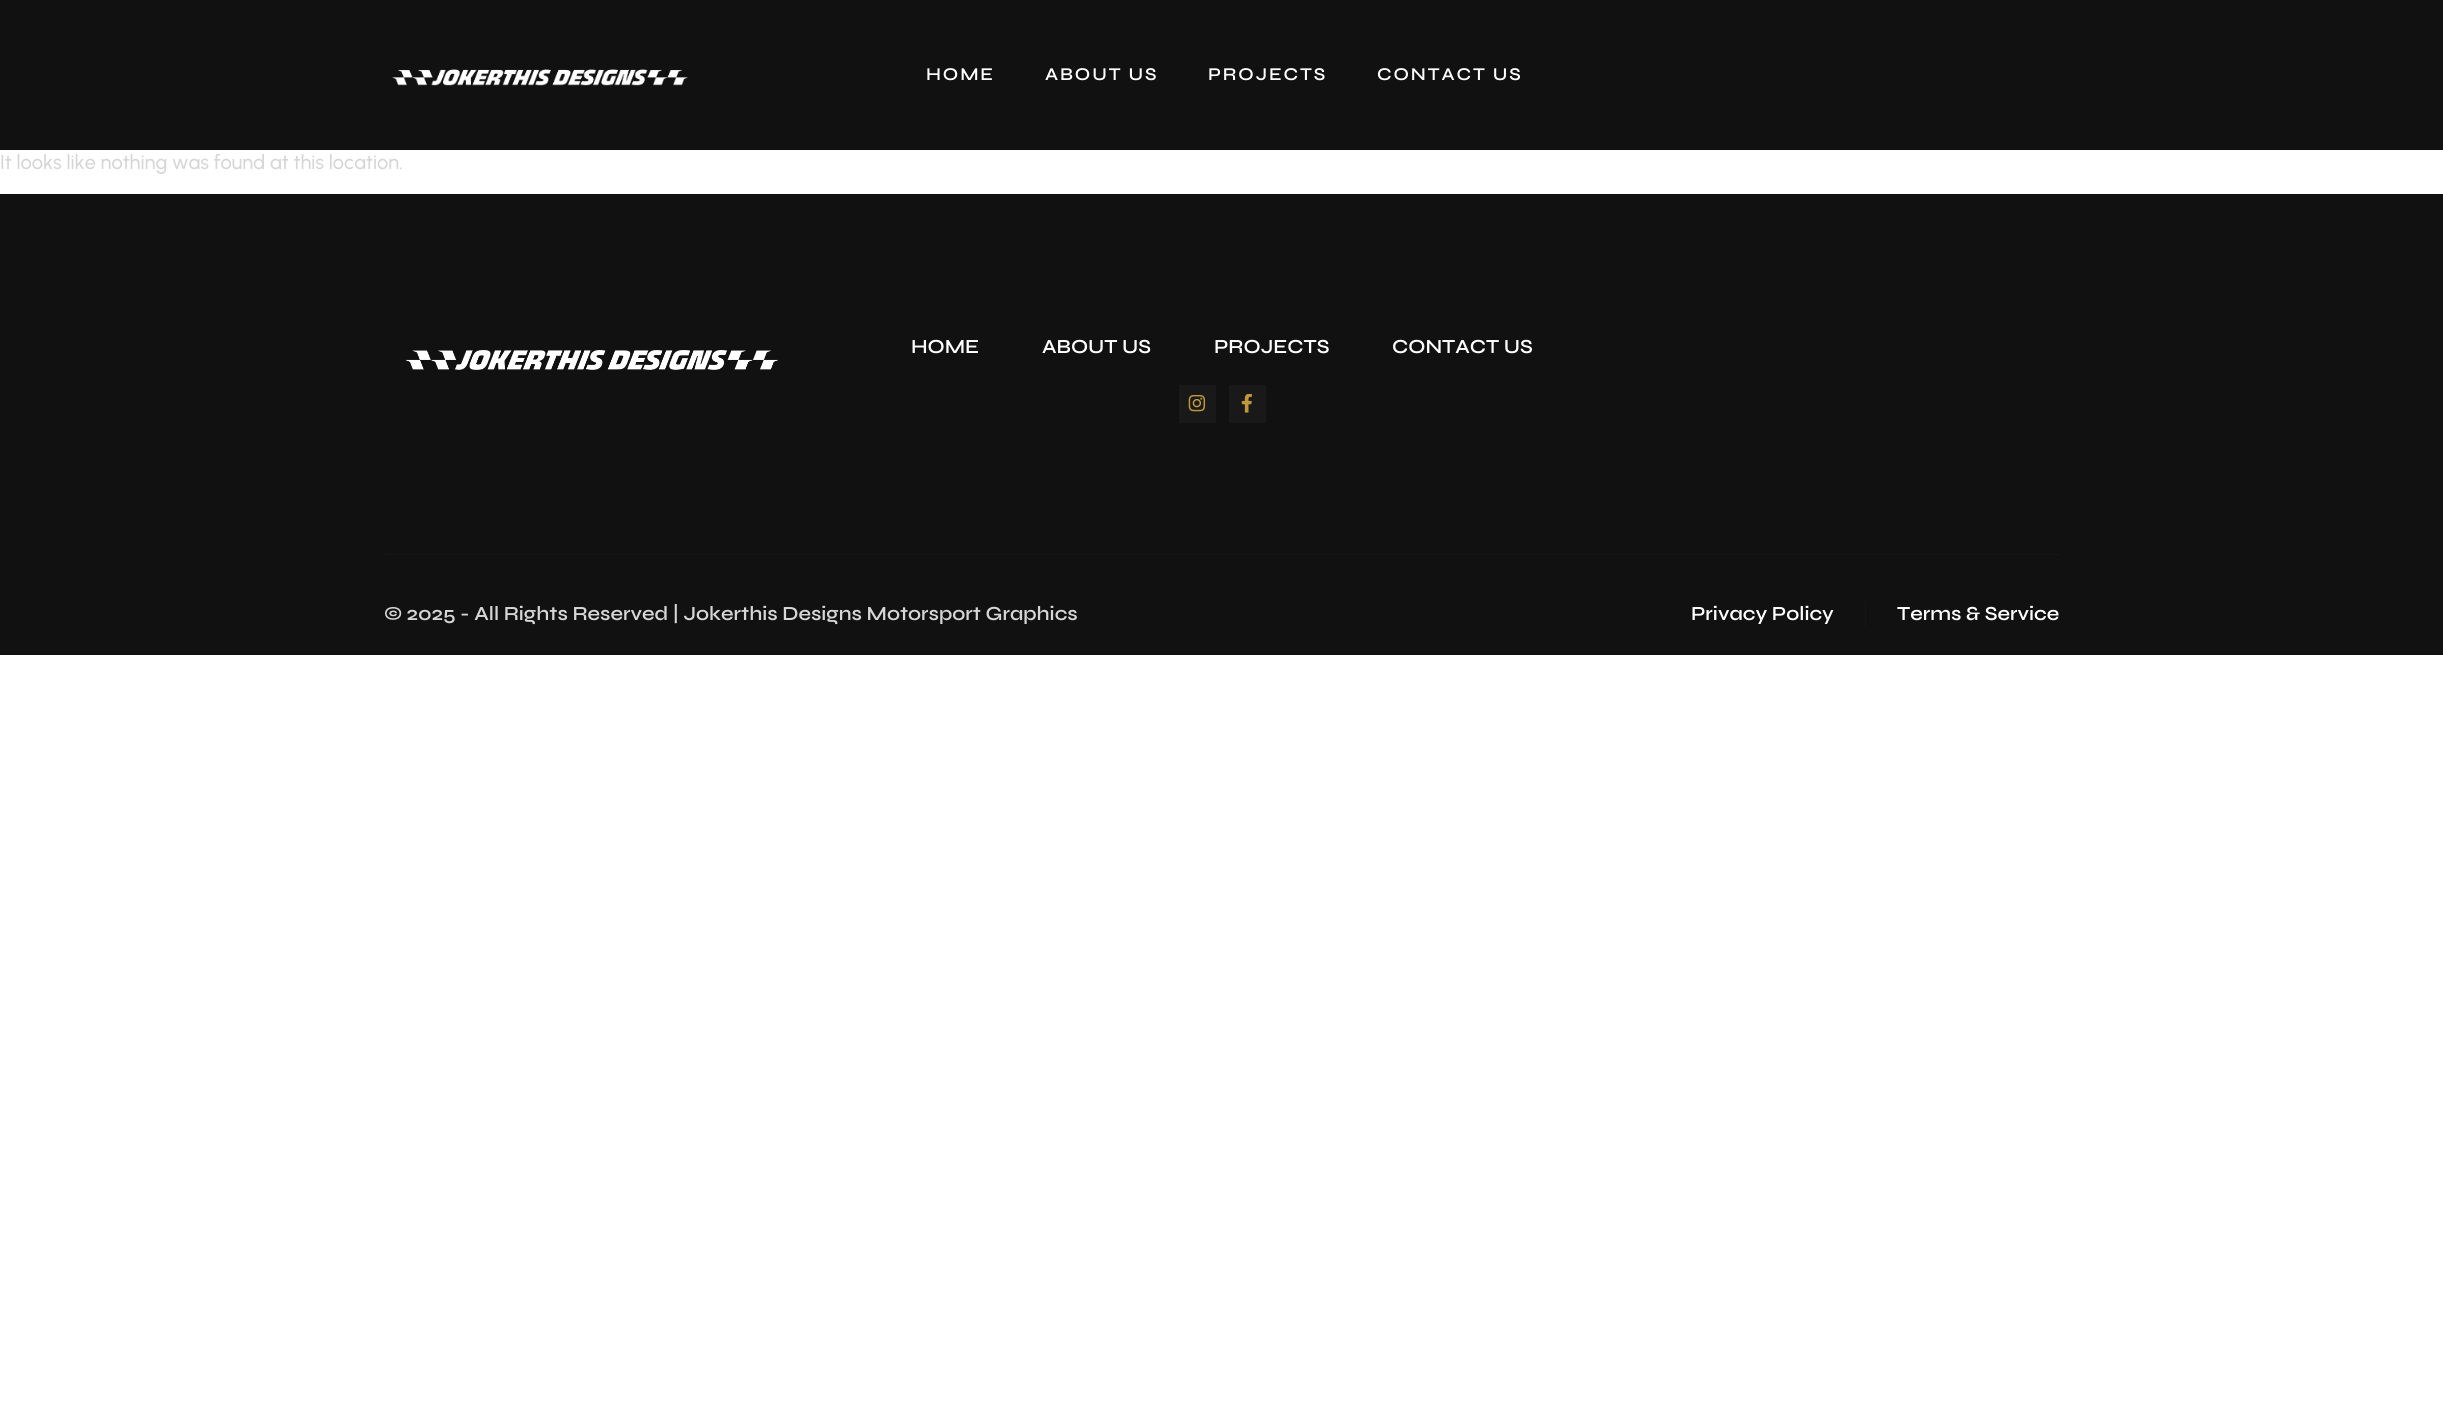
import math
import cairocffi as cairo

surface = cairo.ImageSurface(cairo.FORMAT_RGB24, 2443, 1412)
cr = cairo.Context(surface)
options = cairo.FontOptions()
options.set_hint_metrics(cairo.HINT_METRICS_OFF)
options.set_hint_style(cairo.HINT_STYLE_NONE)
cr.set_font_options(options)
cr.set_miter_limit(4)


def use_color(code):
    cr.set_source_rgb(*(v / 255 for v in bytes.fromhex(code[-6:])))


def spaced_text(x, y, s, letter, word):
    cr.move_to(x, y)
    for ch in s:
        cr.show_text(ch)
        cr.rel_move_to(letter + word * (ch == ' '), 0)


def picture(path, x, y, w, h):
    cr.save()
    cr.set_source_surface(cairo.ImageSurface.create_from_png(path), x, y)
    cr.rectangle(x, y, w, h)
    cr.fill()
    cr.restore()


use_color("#ffffff")
cr.paint()
use_color("#111111")
cr.rectangle(0, 0, 2443, 150)
cr.fill()
picture("img1.png", 392, 69, 296, 17)
cr.select_font_face("Syne SemiBold")
cr.set_font_size(18)
use_color("#ffffff")
spaced_text(926, 80, "HOME", 1.9, 0)
spaced_text(1045, 80, "ABOUT US", 1.9, 0)
spaced_text(1208, 80, "PROJECTS", 1.9, 0)
spaced_text(1377, 80, "CONTACT US", 1.9, 0)
cr.select_font_face("Urbanist Medium")
cr.set_font_size(20)
use_color("#d6d6d6")
cr.move_to(0, 169)
cr.show_text("It looks like nothing was found at this location.")
use_color("#111111")
cr.rectangle(0, 194, 2443, 461)
cr.fill()
cr.select_font_face("Syne SemiBold")
use_color("#ffffff")
cr.move_to(911, 353)
cr.show_text("HOME")
cr.move_to(1042, 353)
cr.show_text("ABOUT US")
cr.move_to(1214, 353)
cr.show_text("PROJECTS")
cr.move_to(1392, 353)
cr.show_text("CONTACT US")
use_color("#191919")
cr.rectangle(1179, 385, 37, 38)
cr.fill()
picture("img2.png", 1188, 395, 18, 17)
cr.rectangle(1229, 385, 37, 38)
cr.fill()
picture("img3.png", 1241, 394, 11, 19)
picture("img4.png", 405, 350, 373, 20)
use_color("#161616")
cr.rectangle(385, 554, 1675, 1)
cr.fill()
use_color("#d6d6d6")
cr.move_to(384, 620)
cr.show_text("© 2025 - All Rights Reserved | Jokerthis Designs Motorsport Graphics")
use_color("#ffffff")
cr.move_to(1691, 620)
cr.show_text("Privacy Policy")
use_color("#161616")
cr.rectangle(1865, 601, 1, 27)
cr.fill()
use_color("#ffffff")
cr.move_to(1897, 620)
cr.show_text("Terms & Service")
surface.write_to_png("result.png")
